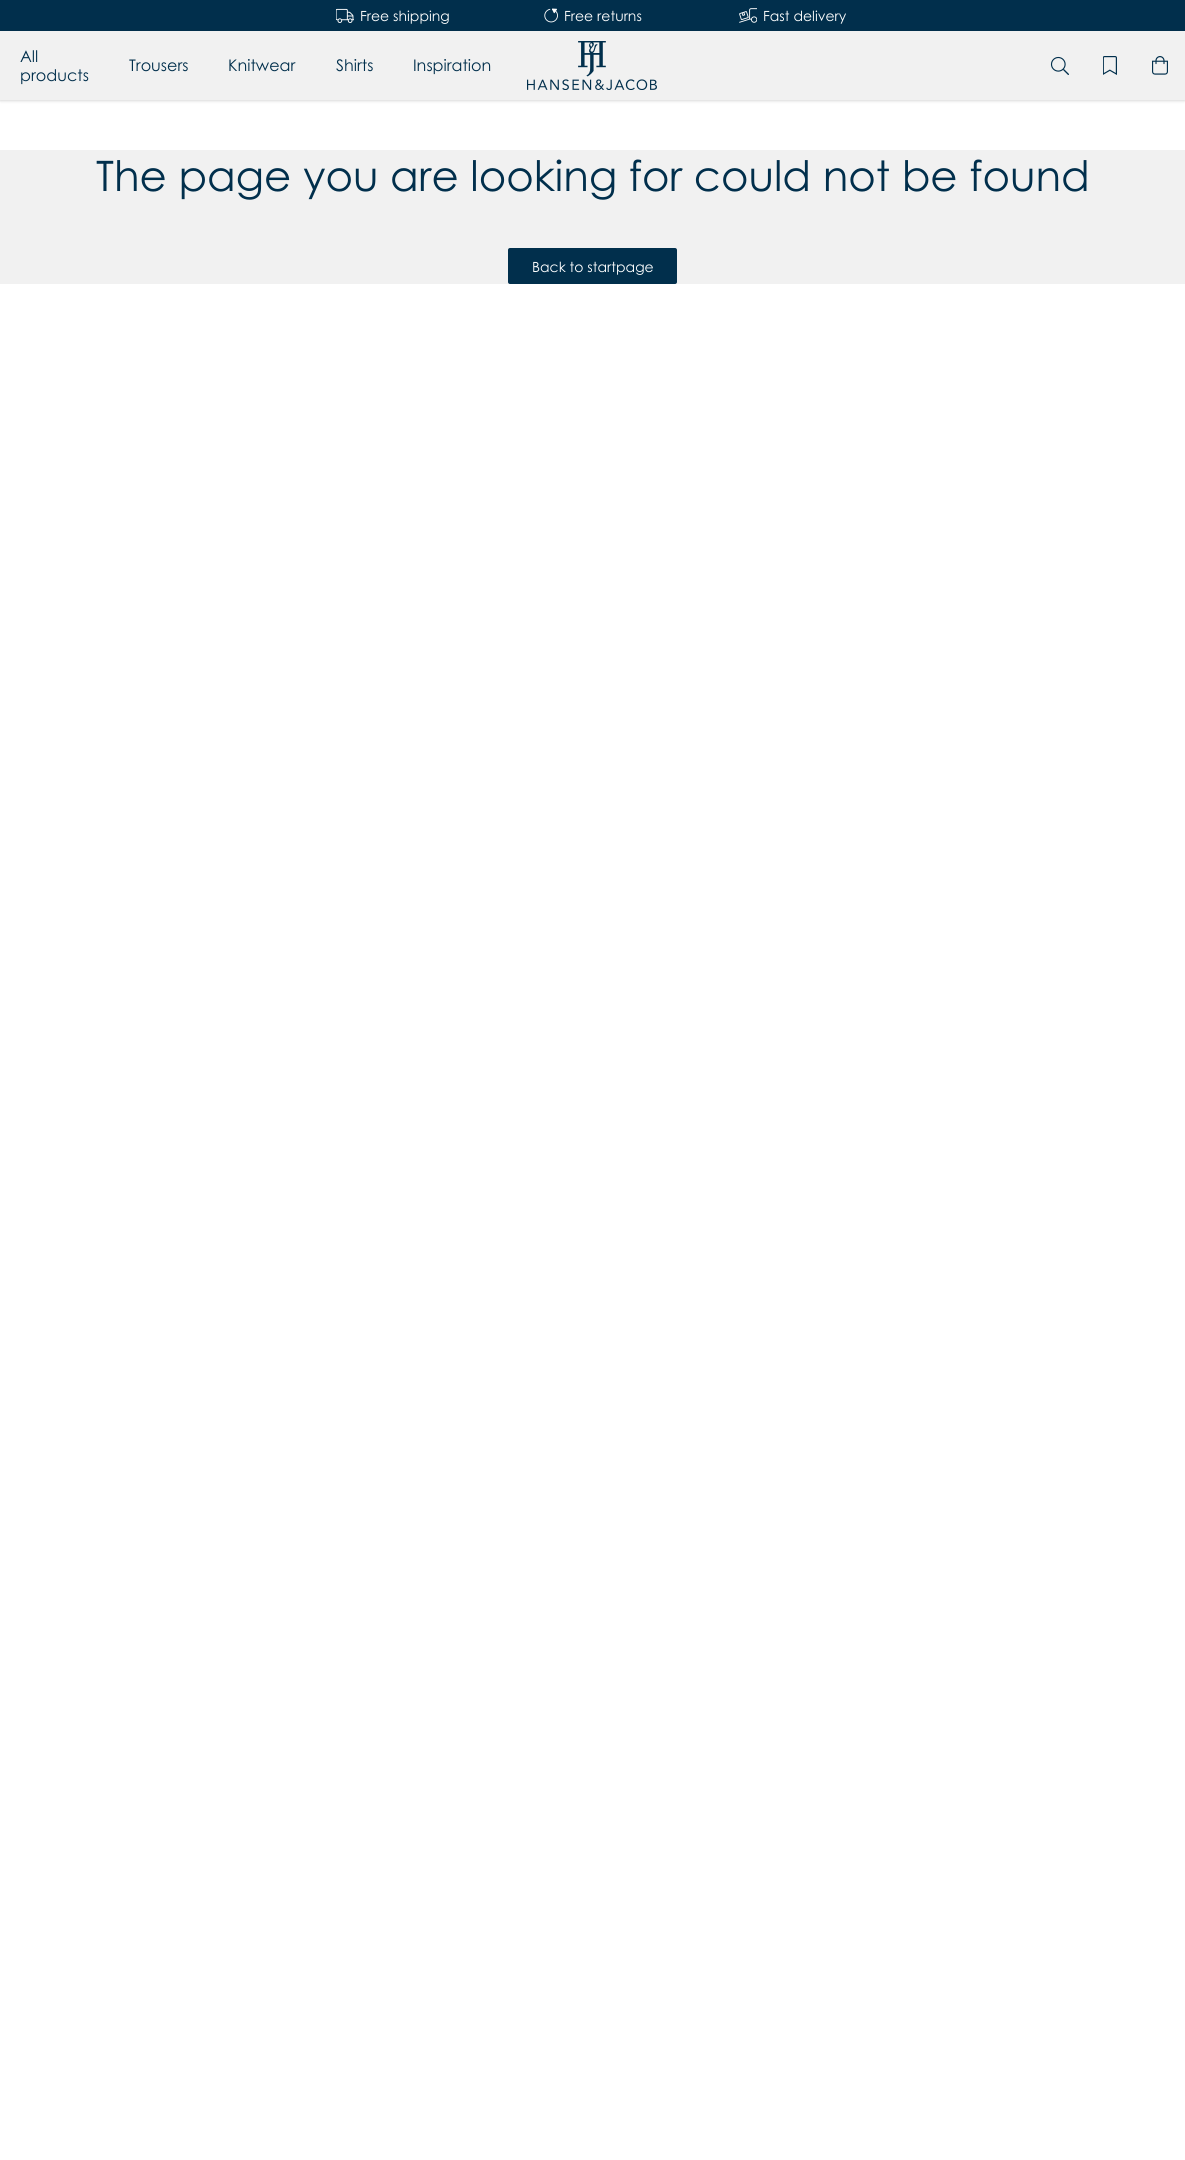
import math
import cairocffi as cairo

surface = cairo.ImageSurface(cairo.FORMAT_RGB24, 1185, 2160)
cr = cairo.Context(surface)
options = cairo.FontOptions()
options.set_hint_metrics(cairo.HINT_METRICS_OFF)
options.set_hint_style(cairo.HINT_STYLE_NONE)
cr.set_font_options(options)
cr.set_miter_limit(4)


def use_color(code):
    cr.set_source_rgb(*(v / 255 for v in bytes.fromhex(code[-6:])))


def round_rect(x, y, w, h, r):
    cr.new_sub_path()
    for i, (u, v) in enumerate([(x + w - r, y + h - r), (x + r, y + h - r), (x + r, y + r), (x + w - r, y + r)]):
        cr.arc(u, v, r, i * math.pi / 2, (i + 1) * math.pi / 2)
    cr.close_path()


def shadow(x, y, w, h, r, blur, alpha):
    cr.push_group_with_content(cairo.CONTENT_ALPHA)
    cr.set_operator(cairo.OPERATOR_SOURCE)
    for i in range(15, -16, -2):
        e = blur * i / 6
        if min(w, h) + 2 * e > 0:
            cr.set_source_rgba(0, 0, 0, alpha * math.erfc((i - 1) / 8.5) / 2)
            round_rect(x - e, y - e, w + 2 * e, h + 2 * e, max(0, min(r + e + blur * .6, min(w, h) / 2 + e)))
            cr.fill()
    cr.mask(cr.pop_group())


def picture(path, x, y, w, h):
    cr.save()
    cr.set_source_surface(cairo.ImageSurface.create_from_png(path), x, y)
    cr.rectangle(x, y, w, h)
    cr.fill()
    cr.restore()


use_color("#ffffff")
cr.paint()
use_color("#012f4c")
cr.rectangle(0, 0, 1185, 31)
cr.fill()
picture("img1.png", 336, 8, 18, 15)
cr.select_font_face("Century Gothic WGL")
cr.set_font_size(14)
use_color("#ffffff")
cr.move_to(360, 21)
cr.show_text("Free shipping")
picture("img2.png", 544, 8, 14, 15)
cr.move_to(564, 21)
cr.show_text("Free returns")
picture("img3.png", 739, 8, 18, 15)
cr.move_to(763, 21)
cr.show_text("Fast delivery")
use_color("#000000")
shadow(0, 32, 1185, 69, 0, 1, 0.06)
shadow(0, 32, 1185, 69, 0, 1.5, 0.1)
use_color("#f1f1f1")
cr.rectangle(0, 31, 1185, 69)
cr.fill()
cr.set_font_size(16)
use_color("#012f4c")
cr.move_to(20, 62)
cr.show_text("All")
cr.move_to(20, 81)
cr.show_text("products")
cr.move_to(129, 71)
cr.show_text("Trousers")
cr.move_to(228, 71)
cr.show_text("Knitwear")
cr.move_to(336, 71)
cr.show_text("Shirts")
cr.move_to(413, 71)
cr.show_text("Inspiration")
picture("img4.png", 527, 41, 130, 49)
picture("img5.png", 1050, 56, 19, 19)
picture("img6.png", 1103, 56, 14, 19)
picture("img7.png", 1152, 56, 16, 19)
use_color("#f1f1f1")
cr.rectangle(0, 150, 1185, 134)
cr.fill()
cr.set_font_size(42)
use_color("#012f4c")
cr.move_to(96, 191)
cr.show_text("The page you are looking for could not be found")
round_rect(508, 248, 169, 36, 2)
cr.fill()
cr.set_font_size(14)
use_color("#ffffff")
cr.move_to(532, 272)
cr.show_text("Back to startpage")
surface.write_to_png("result.png")
